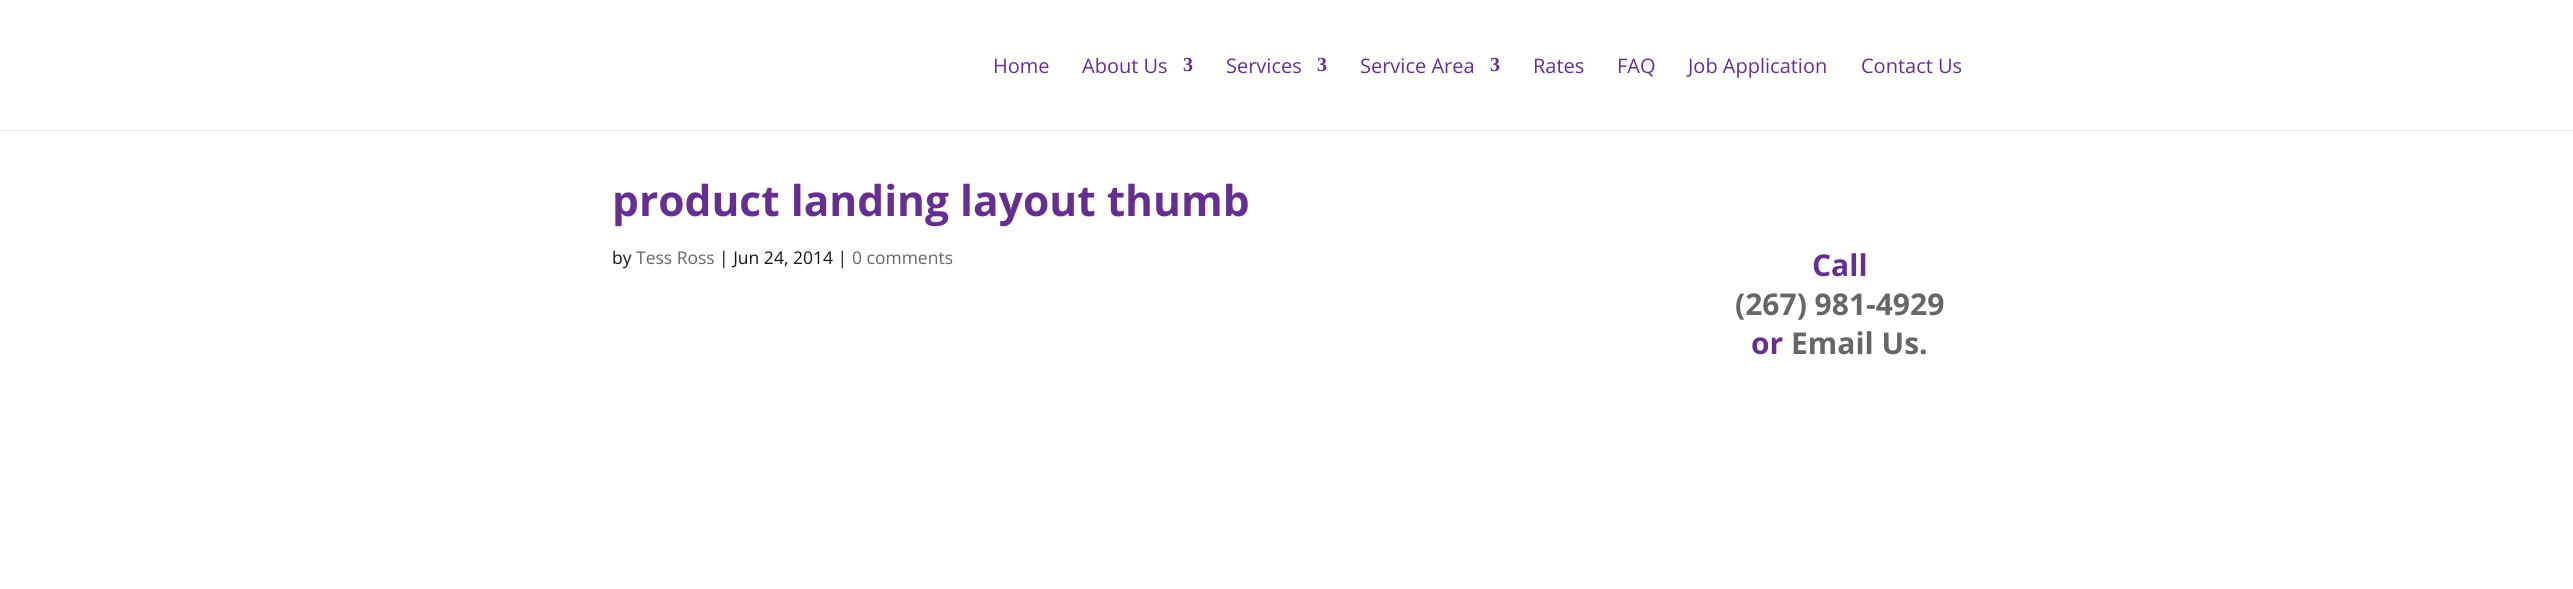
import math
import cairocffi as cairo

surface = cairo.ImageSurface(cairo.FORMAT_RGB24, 2573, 589)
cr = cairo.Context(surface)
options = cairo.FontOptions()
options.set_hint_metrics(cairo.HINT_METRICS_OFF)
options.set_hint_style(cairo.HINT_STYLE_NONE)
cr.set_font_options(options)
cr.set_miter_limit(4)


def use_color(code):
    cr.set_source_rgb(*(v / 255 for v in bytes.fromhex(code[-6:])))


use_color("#ffffff")
cr.paint()
use_color("#e6e6e6")
cr.new_path()
cr.move_to(0, 130)
cr.line_to(0, 131)
cr.line_to(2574, 131)
cr.line_to(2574, 1)
cr.line_to(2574, 130)
cr.close_path()
cr.fill()
cr.select_font_face("Open Sans")
cr.set_font_size(20)
use_color("#662e91")
cr.move_to(993, 73)
cr.show_text("Home")
cr.move_to(1082, 73)
cr.show_text("About Us")
cr.select_font_face("Liberation Serif", cairo.FONT_SLANT_NORMAL, cairo.FONT_WEIGHT_BOLD)
cr.move_to(1183, 71)
cr.show_text("3")
cr.select_font_face("Open Sans")
cr.move_to(1226, 73)
cr.show_text("Services")
cr.select_font_face("Liberation Serif", cairo.FONT_SLANT_NORMAL, cairo.FONT_WEIGHT_BOLD)
cr.move_to(1317, 71)
cr.show_text("3")
cr.select_font_face("Open Sans")
cr.move_to(1360, 73)
cr.show_text("Service Area")
cr.select_font_face("Liberation Serif", cairo.FONT_SLANT_NORMAL, cairo.FONT_WEIGHT_BOLD)
cr.move_to(1490, 71)
cr.show_text("3")
cr.select_font_face("Open Sans")
cr.move_to(1533, 73)
cr.show_text("Rates")
cr.move_to(1617, 73)
cr.show_text("FAQ")
cr.move_to(1688, 73)
cr.show_text("Job Application")
cr.move_to(1861, 73)
cr.show_text("Contact Us")
cr.select_font_face("Open Sans", cairo.FONT_SLANT_NORMAL, cairo.FONT_WEIGHT_BOLD)
cr.set_font_size(42.5)
cr.move_to(612, 216)
cr.show_text("product landing layout thumb")
cr.select_font_face("Open Sans")
cr.set_font_size(17.5)
use_color("#151515")
cr.move_to(612, 264)
cr.show_text("by")
use_color("#666666")
cr.move_to(636, 264)
cr.show_text("Tess Ross")
use_color("#151515")
cr.move_to(719, 264)
cr.show_text("| Jun 24, 2014 |")
use_color("#666666")
cr.move_to(852, 264)
cr.show_text("0 comments")
cr.select_font_face("Open Sans", cairo.FONT_SLANT_NORMAL, cairo.FONT_WEIGHT_BOLD)
cr.set_font_size(30)
use_color("#662e91")
cr.move_to(1812, 276)
cr.show_text("Call")
use_color("#666666")
cr.move_to(1735, 315)
cr.show_text("(267) 981-4929")
use_color("#662e91")
cr.move_to(1751, 354)
cr.show_text("or")
use_color("#666666")
cr.move_to(1791, 354)
cr.show_text("Email Us.")
surface.write_to_png("result.png")
